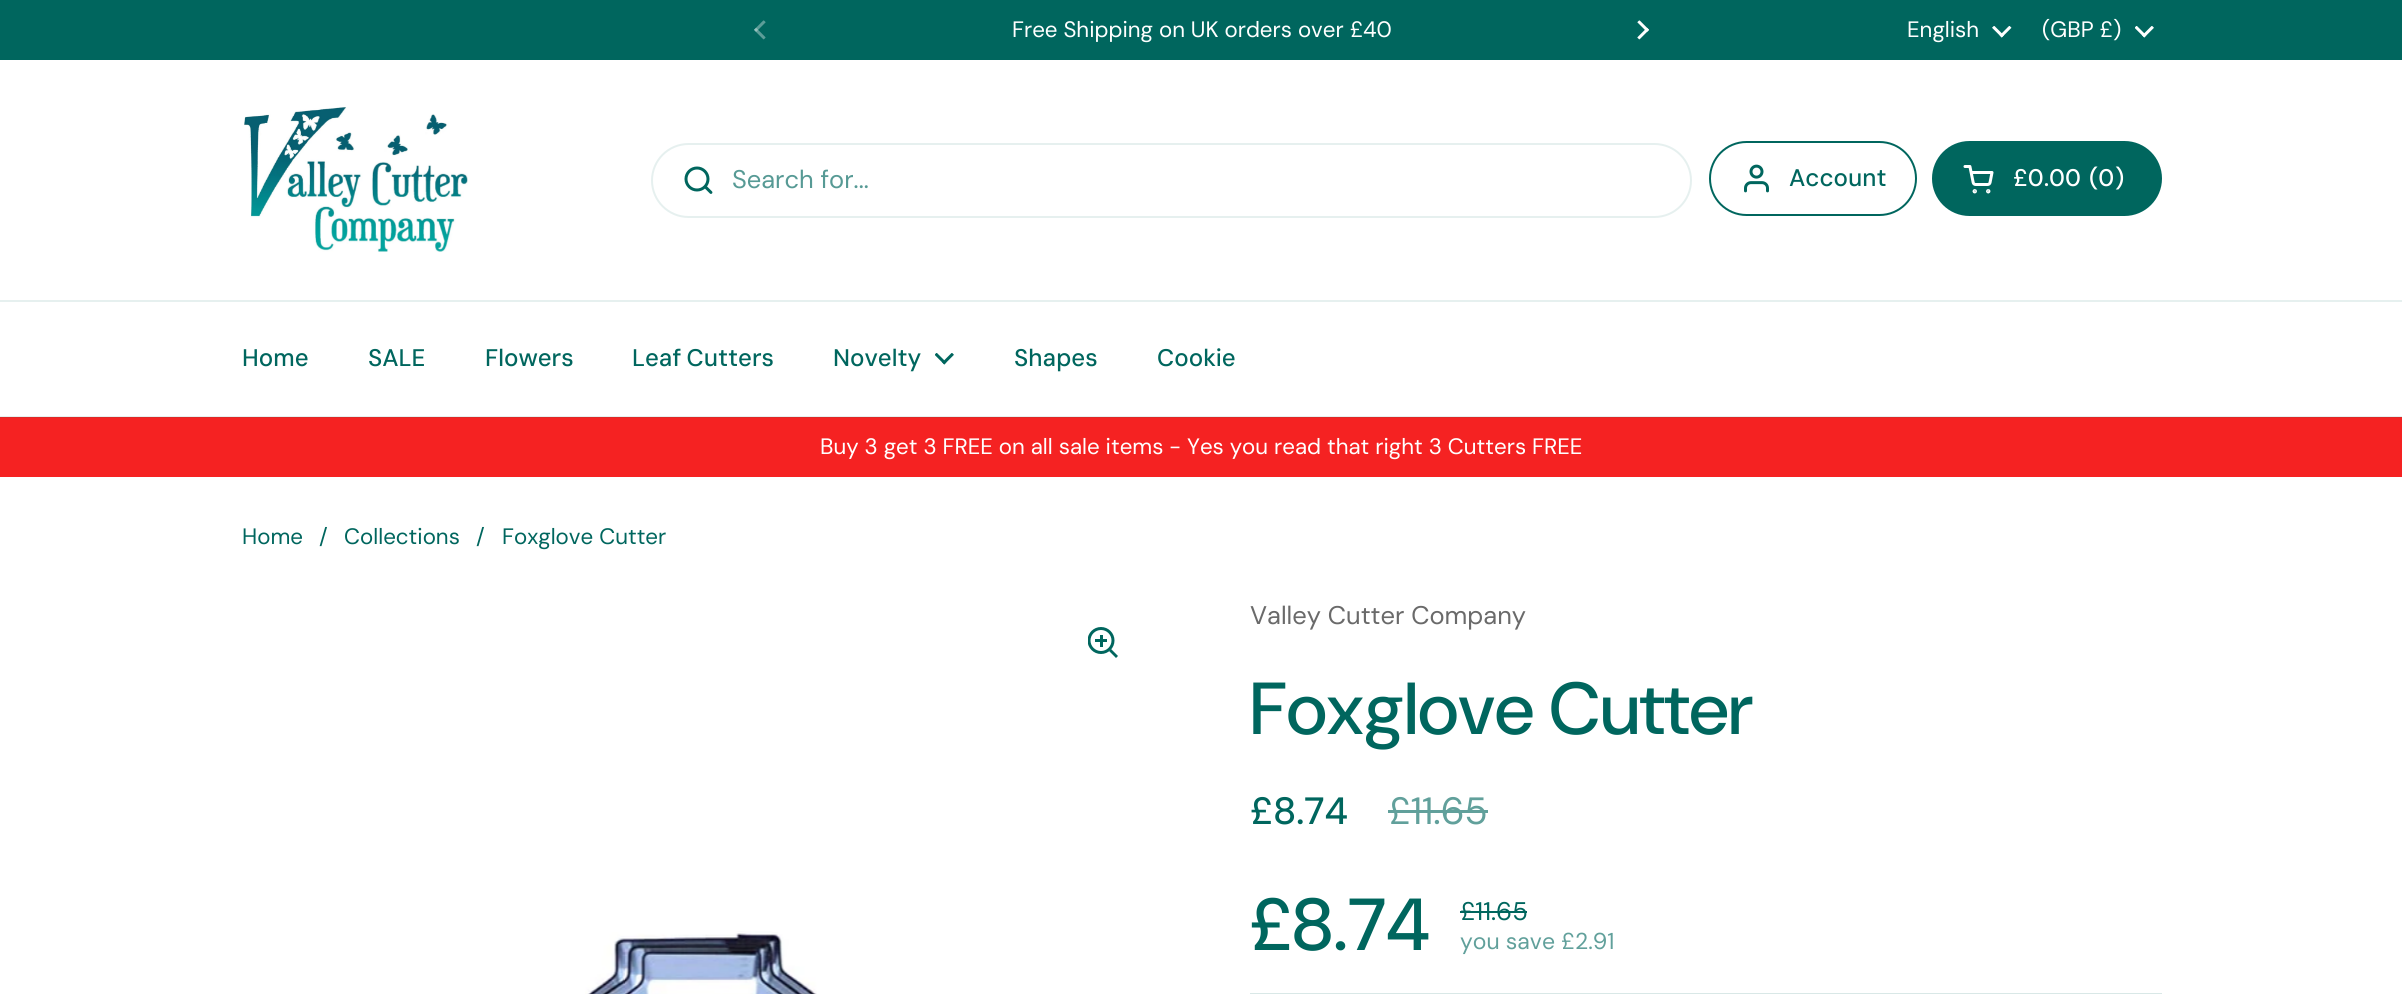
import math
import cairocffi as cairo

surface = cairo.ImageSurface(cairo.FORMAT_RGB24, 2402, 994)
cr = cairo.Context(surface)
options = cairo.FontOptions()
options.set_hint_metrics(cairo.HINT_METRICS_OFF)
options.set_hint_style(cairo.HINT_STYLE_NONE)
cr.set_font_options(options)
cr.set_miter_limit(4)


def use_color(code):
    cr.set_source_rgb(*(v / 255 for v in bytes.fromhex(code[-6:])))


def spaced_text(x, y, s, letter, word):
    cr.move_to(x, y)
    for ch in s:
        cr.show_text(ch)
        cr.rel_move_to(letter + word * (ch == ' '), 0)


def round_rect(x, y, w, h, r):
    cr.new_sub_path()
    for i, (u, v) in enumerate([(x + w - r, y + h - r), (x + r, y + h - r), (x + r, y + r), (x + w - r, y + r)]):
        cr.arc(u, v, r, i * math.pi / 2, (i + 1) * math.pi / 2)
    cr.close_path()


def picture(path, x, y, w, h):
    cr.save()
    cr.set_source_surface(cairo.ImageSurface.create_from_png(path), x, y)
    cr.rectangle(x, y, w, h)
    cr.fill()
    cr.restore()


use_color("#ffffff")
cr.paint()
use_color("#e6f0ef")
cr.rectangle(0, 416, 2402, 1)
cr.fill()
use_color("#00665e")
cr.rectangle(0, 0, 2402, 60)
cr.fill()
picture("img1.png", 754, 20, 12, 20)
cr.select_font_face("DM Sans")
cr.set_font_size(22.3)
use_color("#ffffff")
cr.move_to(1012, 37)
cr.show_text("Free Shipping on UK orders over £40")
picture("img2.png", 1637, 20, 12, 20)
cr.move_to(1907, 37)
cr.show_text("English")
picture("img3.png", 1992, 26, 20, 12)
cr.move_to(2042, 37)
cr.show_text("(GBP £)")
picture("img4.png", 2135, 26, 19, 12)
use_color("#e6f0ef")
cr.rectangle(0, 300, 2402, 2)
cr.fill()
picture("img5.png", 244, 107, 224, 145)
round_rect(652, 144, 1039, 73, 36.5)
cr.stroke()
picture("img6.png", 684, 166, 29, 28)
cr.select_font_face("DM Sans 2")
cr.set_font_size(25.5)
use_color("#579a95")
cr.move_to(732, 188)
cr.show_text("Search for...")
round_rect(1710, 142, 206, 73, 36.5)
use_color("#00665e")
cr.stroke()
picture("img7.png", 1744, 164, 25, 29)
cr.select_font_face("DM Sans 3 Medium")
cr.set_font_size(24)
cr.move_to(1789, 186)
cr.show_text("Account")
round_rect(1933, 142, 228, 73, 36.5)
cr.fill_preserve()
cr.stroke()
picture("img8.png", 1963, 165, 31, 29)
use_color("#ffffff")
cr.move_to(2013, 186)
cr.show_text("£0.00")
cr.move_to(2089, 186)
cr.show_text("(0")
cr.move_to(2115, 186)
cr.show_text(")")
use_color("#00665e")
cr.move_to(242, 366)
cr.show_text("Home")
cr.move_to(368, 366)
cr.show_text("SALE")
cr.move_to(485, 366)
cr.show_text("Flowers")
spaced_text(632, 366, "Leaf Cutters", 0, -1)
cr.move_to(833, 366)
cr.show_text("Novelty")
picture("img9.png", 935, 353, 19, 12)
cr.move_to(1014, 366)
cr.show_text("Shapes")
cr.move_to(1157, 366)
cr.show_text("Cookie")
use_color("#f52222")
cr.rectangle(0, 418, 2402, 59)
cr.fill()
use_color("#dd2928")
cr.rectangle(0, 417, 2402, 1)
cr.fill()
cr.select_font_face("DM Sans")
cr.set_font_size(22.3)
use_color("#ffffff")
cr.move_to(820, 454)
cr.show_text("Buy 3 get 3 FREE on all sale items")
cr.move_to(1169, 454)
cr.show_text("- Yes you read that right 3 Cutters FREE")
use_color("#00665e")
cr.move_to(242, 544)
cr.show_text("Home")
cr.move_to(319, 544)
cr.show_text("/")
cr.move_to(344, 544)
cr.show_text("Collections")
cr.move_to(476, 544)
cr.show_text("/")
cr.move_to(502, 544)
cr.show_text("Foxglove Cutter")
cr.save()
cr.rectangle(1088, 627, 31, 32)
cr.clip()
cr.arc(1101, 640.5, 12, 0, 2 * math.pi)
cr.set_line_width(3)
cr.stroke()
cr.restore()
cr.rectangle(1100, 635, 3, 12)
cr.fill()
cr.rectangle(1095, 639, 12, 3)
cr.fill()
cr.new_path()
cr.move_to(1109, 651)
cr.line_to(1111, 649)
cr.line_to(1118, 656)
cr.line_to(1116, 658)
cr.close_path()
cr.fill()
picture("img10.png", 585, 931, 232, 63)
cr.select_font_face("DM Sans 2")
cr.set_font_size(25.5)
use_color("#6a6a6a")
cr.move_to(1250, 624)
cr.show_text("Valley Cutter Company")
cr.select_font_face("DM Sans Medium")
cr.set_font_size(73.5)
use_color("#00665e")
cr.move_to(1250, 734)
cr.show_text("Foxglove Cutter")
cr.select_font_face("DM Sans 2 Medium")
cr.set_font_size(38)
cr.move_to(1250, 824)
cr.show_text("£8.74")
cr.select_font_face("DM Sans 3")
use_color("#61a09b")
cr.move_to(1388, 824)
cr.show_text("£11.65")
cr.rectangle(1388, 810, 100, 3)
cr.fill()
cr.select_font_face("DM Sans Medium")
cr.set_font_size(73.5)
use_color("#00665e")
cr.move_to(1250, 950)
cr.show_text("£8.74")
cr.select_font_face("DM Sans 2")
cr.set_font_size(25.5)
cr.move_to(1460, 920)
cr.show_text("£11.65")
cr.rectangle(1460, 911, 67, 2)
cr.fill()
cr.select_font_face("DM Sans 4")
cr.set_font_size(23)
use_color("#61a09b")
cr.move_to(1460, 949)
cr.show_text("you save £2.91")
use_color("#d9e8e7")
cr.rectangle(1250, 993, 912, 1)
cr.fill()
surface.write_to_png("result.png")
